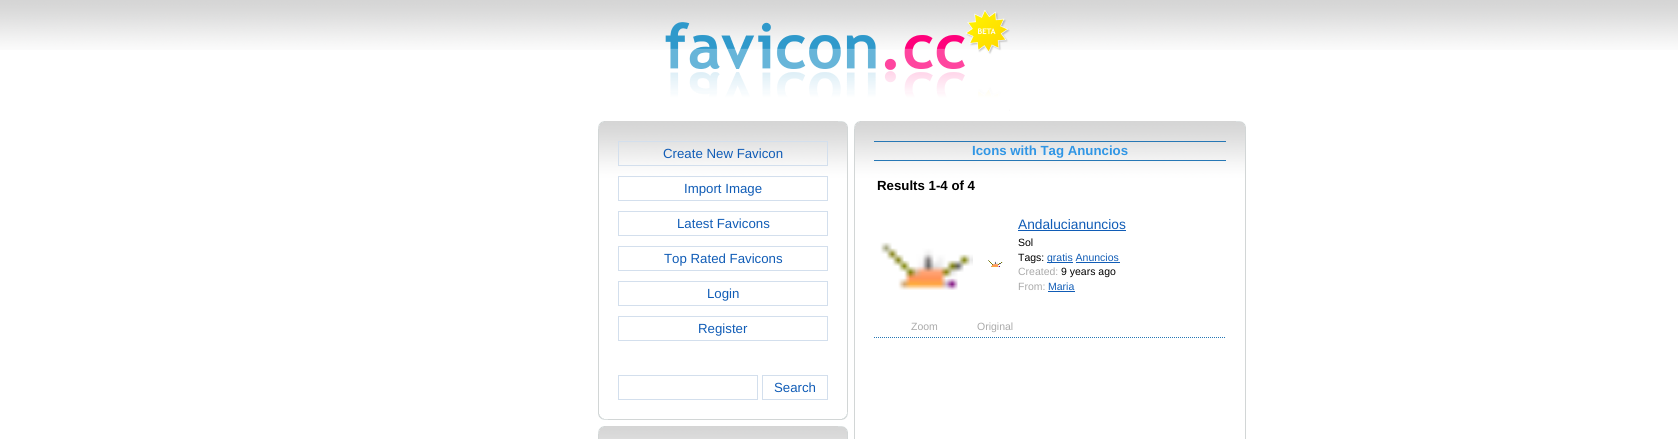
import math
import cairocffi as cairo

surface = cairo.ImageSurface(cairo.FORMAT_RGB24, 1678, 439)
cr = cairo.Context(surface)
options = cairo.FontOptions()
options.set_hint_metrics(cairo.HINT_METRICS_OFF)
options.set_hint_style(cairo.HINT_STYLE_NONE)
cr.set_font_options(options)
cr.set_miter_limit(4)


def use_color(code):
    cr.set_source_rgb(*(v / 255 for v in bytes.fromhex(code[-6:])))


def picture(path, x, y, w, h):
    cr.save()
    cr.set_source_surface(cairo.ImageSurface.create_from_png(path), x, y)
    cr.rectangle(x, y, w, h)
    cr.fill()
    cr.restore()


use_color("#ffffff")
cr.paint()
picture("img1.png", 0, 0, 1678, 50)
picture("img2.png", 665, 10, 345, 101)
picture("img3.png", 599, 121, 248, 298)
use_color("#d2d6d6")
cr.rectangle(608, 419, 240, 1)
cr.fill()
cr.rectangle(598, 125, 1, 294)
cr.fill()
cr.rectangle(847, 125, 1, 294)
cr.fill()
picture("img4.png", 842, 412, 6, 8)
picture("img5.png", 598, 121, 7, 8)
picture("img6.png", 838, 121, 10, 6)
picture("img7.png", 598, 414, 10, 6)
cr.rectangle(618.5, 141.5, 209, 24)
use_color("#d3dfed")
cr.set_line_width(1)
cr.stroke()
cr.select_font_face("Liberation Sans")
cr.set_font_size(13.25)
use_color("#105cb6")
cr.move_to(663, 158)
cr.show_text("Create New Favicon")
cr.rectangle(618.5, 176.5, 209, 24)
use_color("#d3dfed")
cr.stroke()
use_color("#105cb6")
cr.move_to(684, 193)
cr.show_text("Import Image")
cr.rectangle(618.5, 211.5, 209, 24)
use_color("#d3dfed")
cr.stroke()
use_color("#105cb6")
cr.move_to(677, 228)
cr.show_text("Latest Favicons")
cr.rectangle(618.5, 246.5, 209, 24)
use_color("#d3dfed")
cr.stroke()
use_color("#105cb6")
cr.move_to(664, 263)
cr.show_text("Top Rated Favicons")
cr.rectangle(618.5, 281.5, 209, 24)
use_color("#d3dfed")
cr.stroke()
use_color("#105cb6")
cr.move_to(707, 298)
cr.show_text("Login")
cr.rectangle(618.5, 316.5, 209, 24)
use_color("#d3dfed")
cr.stroke()
use_color("#105cb6")
cr.move_to(698, 333)
cr.show_text("Register")
cr.rectangle(618.5, 375.5, 139, 24)
use_color("#d3dfed")
cr.stroke()
cr.rectangle(762.5, 375.5, 65, 24)
cr.stroke()
use_color("#105cb6")
cr.move_to(774, 392)
cr.show_text("Search")
picture("img8.png", 599, 426, 248, 13)
use_color("#d2d6d6")
cr.rectangle(598, 430, 1, 9)
cr.fill()
cr.rectangle(847, 430, 1, 9)
cr.fill()
picture("img5.png", 598, 426, 7, 8)
picture("img6.png", 838, 426, 10, 6)
picture("img9.png", 855, 121, 390, 318)
cr.rectangle(854, 125, 1, 314)
cr.fill()
cr.rectangle(1245, 125, 1, 314)
cr.fill()
picture("img10.png", 854, 121, 7, 8)
picture("img11.png", 1236, 121, 10, 6)
use_color("#2677b5")
cr.rectangle(874, 141, 352, 1)
cr.fill()
cr.rectangle(874, 160, 352, 1)
cr.fill()
cr.select_font_face("Liberation Sans", cairo.FONT_SLANT_NORMAL, cairo.FONT_WEIGHT_BOLD)
use_color("#3096e5")
cr.move_to(972, 155)
cr.show_text("Icons with Tag Anuncios")
use_color("#000000")
cr.move_to(877, 190)
cr.show_text("Results 1-4 of 4")
cr.new_path()
cr.move_to(874, 337.5)
cr.line_to(1226, 337.5)
use_color("#2677b5")
cr.set_dash([1, 1])
cr.stroke()
picture("img12.png", 880, 242, 93, 48)
picture("img13.png", 988, 260, 15, 7)
cr.select_font_face("Liberation Sans")
cr.set_font_size(13.75)
use_color("#105cb6")
cr.move_to(1018, 229)
cr.show_text("Andalucianuncios")
cr.rectangle(1018, 230, 108, 1)
cr.fill()
cr.set_font_size(10.5)
use_color("#000000")
cr.move_to(1018, 246)
cr.show_text("Sol")
cr.move_to(1018, 261)
cr.show_text("Tags:")
use_color("#105cb6")
cr.rectangle(1047, 262, 26, 1)
cr.fill()
cr.move_to(1047, 261)
cr.show_text("gratis Anuncios")
cr.rectangle(1076, 262, 44, 1)
cr.fill()
use_color("#aaaaaa")
cr.move_to(1018, 275)
cr.show_text("Created:")
use_color("#000000")
cr.move_to(1061, 275)
cr.show_text("9 years ago")
use_color("#aaaaaa")
cr.move_to(1018, 290)
cr.show_text("From:")
use_color("#105cb6")
cr.move_to(1048, 290)
cr.show_text("Maria")
cr.rectangle(1048, 291, 27, 1)
cr.fill()
use_color("#aaaaaa")
cr.move_to(911, 330)
cr.show_text("Zoom")
cr.move_to(977, 330)
cr.show_text("Original")
surface.write_to_png("result.png")
